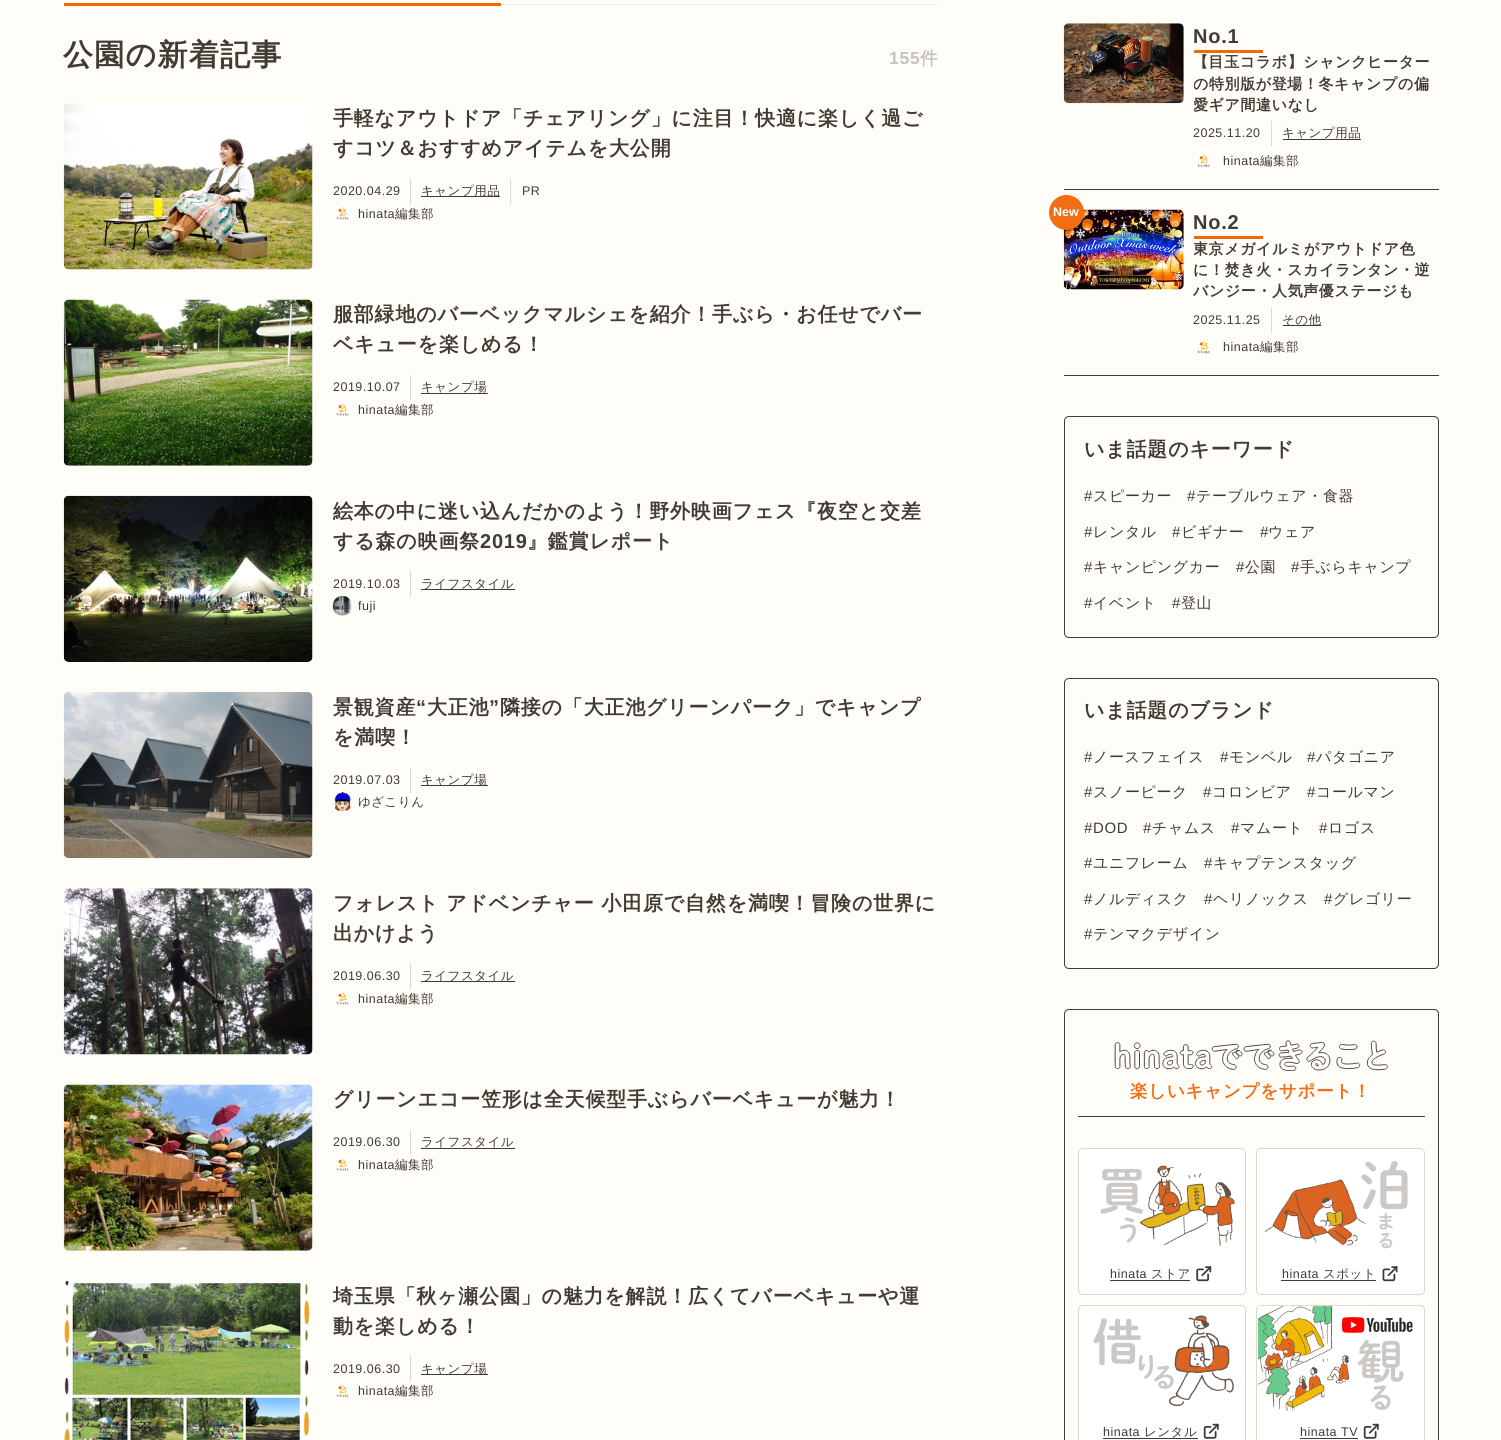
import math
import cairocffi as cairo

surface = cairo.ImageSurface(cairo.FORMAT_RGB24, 1501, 1440)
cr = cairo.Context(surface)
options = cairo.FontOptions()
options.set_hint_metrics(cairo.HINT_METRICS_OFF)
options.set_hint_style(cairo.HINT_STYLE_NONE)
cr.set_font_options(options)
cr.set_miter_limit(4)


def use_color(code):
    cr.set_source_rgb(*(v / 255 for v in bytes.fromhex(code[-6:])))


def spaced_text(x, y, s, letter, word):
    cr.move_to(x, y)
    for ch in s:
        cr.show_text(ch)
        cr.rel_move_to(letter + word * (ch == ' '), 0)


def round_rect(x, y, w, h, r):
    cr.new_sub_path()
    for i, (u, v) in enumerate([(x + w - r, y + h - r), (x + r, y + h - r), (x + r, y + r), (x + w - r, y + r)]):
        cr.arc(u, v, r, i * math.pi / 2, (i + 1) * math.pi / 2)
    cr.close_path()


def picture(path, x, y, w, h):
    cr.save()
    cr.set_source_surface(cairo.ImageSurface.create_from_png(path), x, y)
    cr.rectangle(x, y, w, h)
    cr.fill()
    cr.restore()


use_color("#fffdf7")
cr.paint()
use_color("#eeeeee")
cr.rectangle(501, 4, 438, 1)
cr.fill()
use_color("#f26900")
cr.rectangle(64, 3, 437, 3)
cr.fill()
cr.select_font_face("WenQuanYi Zen Hei", cairo.FONT_SLANT_NORMAL, cairo.FONT_WEIGHT_BOLD)
cr.set_font_size(30)
use_color("#423a34")
spaced_text(63, 65, "公園の新着記事", 1.25, 0)
cr.select_font_face("Liberation Sans", cairo.FONT_SLANT_NORMAL, cairo.FONT_WEIGHT_BOLD)
cr.set_font_size(17.5)
use_color("#c6c2bd")
spaced_text(889, 64, "155", 0.75, 0)
cr.select_font_face("WenQuanYi Zen Hei", cairo.FONT_SLANT_NORMAL, cairo.FONT_WEIGHT_BOLD)
spaced_text(920, 64, "件", 0.75, 0)
picture("img1.png", 63, 103, 250, 167)
cr.set_font_size(20)
use_color("#423a34")
spaced_text(333, 125, "手軽なアウトドア「チェアリング」に注目！快適に楽しく過ご", 0.8, 0)
spaced_text(333, 155, "すコツ＆おすすめアイテムを大公開", 0.8, 0)
cr.select_font_face("Liberation Sans")
cr.set_font_size(12.5)
spaced_text(333, 195, "2020.04.29", 0.5, 0)
use_color("#d8d9d0")
cr.rectangle(410, 179, 1, 25)
cr.fill()
use_color("#423a34")
cr.rectangle(421, 196, 79, 1)
cr.fill()
cr.select_font_face("WenQuanYi Zen Hei Medium")
spaced_text(421, 195, "キャンプ用品", 0.5, 0)
use_color("#d8d9d0")
cr.rectangle(510, 179, 1, 25)
cr.fill()
cr.select_font_face("Liberation Sans")
use_color("#423a34")
spaced_text(522, 195, "PR", 0.5, 0)
picture("img2.png", 333, 203, 19, 20)
spaced_text(358, 218, "hinata", 0.5, 0)
cr.select_font_face("WenQuanYi Zen Hei Medium")
spaced_text(395, 218, "編集部", 0.5, 0)
picture("img3.png", 63, 299, 250, 167)
cr.select_font_face("WenQuanYi Zen Hei", cairo.FONT_SLANT_NORMAL, cairo.FONT_WEIGHT_BOLD)
cr.set_font_size(20)
spaced_text(333, 321, "服部緑地のバーベックマルシェを紹介！手ぶら・お任せでバー", 0.8, 0)
spaced_text(333, 351, "ベキューを楽しめる！", 0.8, 0)
cr.select_font_face("Liberation Sans")
cr.set_font_size(12.5)
spaced_text(333, 391, "2019.10.07", 0.5, 0)
use_color("#d8d9d0")
cr.rectangle(410, 375, 1, 25)
cr.fill()
cr.select_font_face("WenQuanYi Zen Hei Medium")
use_color("#423a34")
spaced_text(421, 391, "キャンプ場", 0.5, 0)
cr.rectangle(421, 393, 67, 1)
cr.fill()
picture("img4.png", 333, 400, 19, 19)
cr.select_font_face("Liberation Sans")
spaced_text(358, 414, "hinata", 0.5, 0)
cr.select_font_face("WenQuanYi Zen Hei Medium")
spaced_text(395, 414, "編集部", 0.5, 0)
picture("img5.png", 63, 495, 250, 167)
cr.save()
cr.rectangle(333, 496, 606, 60)
cr.clip()
cr.select_font_face("WenQuanYi Zen Hei", cairo.FONT_SLANT_NORMAL, cairo.FONT_WEIGHT_BOLD)
cr.set_font_size(20)
spaced_text(333, 518, "絵本の中に迷い込んだかのよう！野外映画フェス『夜空と交差", 0.8, 0)
cr.restore()
cr.select_font_face("WenQuanYi Zen Hei", cairo.FONT_SLANT_NORMAL, cairo.FONT_WEIGHT_BOLD)
cr.set_font_size(20)
spaced_text(333, 548, "する森の映画祭", 0.8, 0)
cr.select_font_face("Liberation Sans", cairo.FONT_SLANT_NORMAL, cairo.FONT_WEIGHT_BOLD)
spaced_text(480, 548, "2019", 0.8, 0)
cr.select_font_face("WenQuanYi Zen Hei", cairo.FONT_SLANT_NORMAL, cairo.FONT_WEIGHT_BOLD)
spaced_text(527, 548, "』鑑賞レポート", 0.8, 0)
cr.select_font_face("Liberation Sans")
cr.set_font_size(12.5)
spaced_text(333, 588, "2019.10.03", 0.5, 0)
use_color("#d8d9d0")
cr.rectangle(410, 571, 1, 25)
cr.fill()
use_color("#423a34")
cr.rectangle(421, 589, 94, 1)
cr.fill()
cr.select_font_face("WenQuanYi Zen Hei Medium")
spaced_text(421, 588, "ライフスタイル", 0.5, 0)
picture("img6.png", 332, 595, 20, 21)
cr.select_font_face("Liberation Sans")
spaced_text(358, 610, "fuji", 0.5, 0)
picture("img7.png", 63, 692, 250, 167)
cr.select_font_face("WenQuanYi Zen Hei", cairo.FONT_SLANT_NORMAL, cairo.FONT_WEIGHT_BOLD)
cr.set_font_size(20)
spaced_text(333, 714, "景観資産", 0.8, 0)
cr.select_font_face("Liberation Sans", cairo.FONT_SLANT_NORMAL, cairo.FONT_WEIGHT_BOLD)
spaced_text(416, 714, "“", 0.8, 0)
cr.select_font_face("WenQuanYi Zen Hei", cairo.FONT_SLANT_NORMAL, cairo.FONT_WEIGHT_BOLD)
spaced_text(427, 714, "大正池", 0.8, 0)
cr.select_font_face("Liberation Sans", cairo.FONT_SLANT_NORMAL, cairo.FONT_WEIGHT_BOLD)
spaced_text(489, 714, "”", 0.8, 0)
cr.select_font_face("WenQuanYi Zen Hei", cairo.FONT_SLANT_NORMAL, cairo.FONT_WEIGHT_BOLD)
spaced_text(500, 714, "隣接の「大正池グリーンパーク」でキャンプ", 0.8, 0)
spaced_text(333, 744, "を満喫！", 0.8, 0)
cr.select_font_face("Liberation Sans")
cr.set_font_size(12.5)
spaced_text(333, 784, "2019.07.03", 0.5, 0)
use_color("#d8d9d0")
cr.rectangle(410, 768, 1, 25)
cr.fill()
use_color("#423a34")
cr.rectangle(421, 785, 67, 1)
cr.fill()
cr.select_font_face("WenQuanYi Zen Hei Medium")
spaced_text(421, 784, "キャンプ場", 0.5, 0)
picture("img8.png", 333, 792, 19, 20)
spaced_text(358, 806, "ゆざこりん", 0.5, 0)
picture("img9.png", 63, 888, 250, 167)
cr.select_font_face("WenQuanYi Zen Hei", cairo.FONT_SLANT_NORMAL, cairo.FONT_WEIGHT_BOLD)
cr.set_font_size(20)
spaced_text(333, 910, "フォレスト アドベンチャー 小田原で自然を満喫！冒険の世界に", 0.8, 0)
spaced_text(333, 940, "出かけよう", 0.8, 0)
cr.select_font_face("Liberation Sans")
cr.set_font_size(12.5)
spaced_text(333, 980, "2019.06.30", 0.5, 0)
use_color("#d8d9d0")
cr.rectangle(410, 964, 1, 25)
cr.fill()
use_color("#423a34")
cr.rectangle(421, 981, 94, 1)
cr.fill()
cr.select_font_face("WenQuanYi Zen Hei Medium")
spaced_text(421, 980, "ライフスタイル", 0.5, 0)
picture("img10.png", 333, 988, 19, 20)
cr.select_font_face("Liberation Sans")
spaced_text(358, 1003, "hinata", 0.5, 0)
cr.select_font_face("WenQuanYi Zen Hei Medium")
spaced_text(395, 1003, "編集部", 0.5, 0)
picture("img11.png", 63, 1084, 250, 167)
cr.select_font_face("WenQuanYi Zen Hei", cairo.FONT_SLANT_NORMAL, cairo.FONT_WEIGHT_BOLD)
cr.set_font_size(20)
spaced_text(333, 1106, "グリーンエコー笠形は全天候型手ぶらバーベキューが魅力！", 0.8, 0)
cr.select_font_face("Liberation Sans")
cr.set_font_size(12.5)
spaced_text(333, 1146, "2019.06.30", 0.5, 0)
use_color("#d8d9d0")
cr.rectangle(410, 1130, 1, 25)
cr.fill()
cr.select_font_face("WenQuanYi Zen Hei Medium")
use_color("#423a34")
spaced_text(421, 1146, "ライフスタイル", 0.5, 0)
cr.rectangle(421, 1148, 94, 1)
cr.fill()
picture("img12.png", 333, 1155, 19, 19)
cr.select_font_face("Liberation Sans")
spaced_text(358, 1169, "hinata", 0.5, 0)
cr.select_font_face("WenQuanYi Zen Hei Medium")
spaced_text(395, 1169, "編集部", 0.5, 0)
picture("img13.png", 64, 1280, 248, 160)
cr.select_font_face("WenQuanYi Zen Hei", cairo.FONT_SLANT_NORMAL, cairo.FONT_WEIGHT_BOLD)
cr.set_font_size(20)
spaced_text(333, 1303, "埼玉県「秋ヶ瀬公園」の魅力を解説！広くてバーベキューや運", 0.8, 0)
spaced_text(333, 1333, "動を楽しめる！", 0.8, 0)
cr.select_font_face("Liberation Sans")
cr.set_font_size(12.5)
spaced_text(333, 1373, "2019.06.30", 0.5, 0)
use_color("#d8d9d0")
cr.rectangle(410, 1356, 1, 25)
cr.fill()
use_color("#423a34")
cr.rectangle(421, 1374, 67, 1)
cr.fill()
cr.select_font_face("WenQuanYi Zen Hei Medium")
spaced_text(421, 1373, "キャンプ場", 0.5, 0)
picture("img14.png", 333, 1381, 19, 20)
cr.select_font_face("Liberation Sans")
spaced_text(358, 1395, "hinata", 0.5, 0)
cr.select_font_face("WenQuanYi Zen Hei Medium")
spaced_text(395, 1395, "編集部", 0.5, 0)
cr.rectangle(1064, 189, 375, 1)
cr.fill()
picture("img15.png", 1063, 23, 121, 81)
use_color("#f26900")
cr.rectangle(1194, 50, 69, 3)
cr.fill()
cr.select_font_face("Liberation Sans", cairo.FONT_SLANT_NORMAL, cairo.FONT_WEIGHT_BOLD)
cr.set_font_size(20)
use_color("#423a34")
spaced_text(1193, 43, "No.1", 0.8, 0)
cr.select_font_face("WenQuanYi Zen Hei", cairo.FONT_SLANT_NORMAL, cairo.FONT_WEIGHT_BOLD)
cr.set_font_size(15)
spaced_text(1193, 67, "【目玉コラボ】シャンクヒーター", 0.6, 0)
cr.save()
cr.rectangle(1194, 53, 245, 63)
cr.clip()
spaced_text(1193, 89, "の特別版が登場！冬キャンプの偏", 0.6, 0)
spaced_text(1193, 110, "愛ギア間違いなし", 0.6, 0)
cr.restore()
cr.select_font_face("Liberation Sans")
cr.set_font_size(12.5)
spaced_text(1193, 137, "2025.11.20", 0.5, 0)
use_color("#d8d9d0")
cr.rectangle(1271, 121, 1, 25)
cr.fill()
cr.select_font_face("WenQuanYi Zen Hei Medium")
use_color("#423a34")
spaced_text(1282, 137, "キャンプ用品", 0.5, 0)
cr.rectangle(1283, 139, 78, 1)
cr.fill()
picture("img16.png", 1194, 151, 20, 20)
cr.select_font_face("Liberation Sans")
spaced_text(1223, 165, "hinata", 0.5, 0)
cr.select_font_face("WenQuanYi Zen Hei Medium")
spaced_text(1260, 165, "編集部", 0.5, 0)
cr.rectangle(1064, 375, 375, 1)
cr.fill()
picture("img17.png", 1063, 209, 121, 81)
use_color("#f26d14")
cr.arc(1066.5, 212.5, 17.5, 0, 2 * math.pi)
cr.fill()
cr.select_font_face("Liberation Sans", cairo.FONT_SLANT_NORMAL, cairo.FONT_WEIGHT_BOLD)
use_color("#ffffff")
cr.move_to(1053, 216)
cr.show_text("New")
use_color("#f26900")
cr.rectangle(1194, 236, 69, 3)
cr.fill()
cr.set_font_size(20)
use_color("#423a34")
spaced_text(1193, 229, "No.2", 0.8, 0)
cr.save()
cr.rectangle(1194, 239, 245, 64)
cr.clip()
cr.select_font_face("WenQuanYi Zen Hei", cairo.FONT_SLANT_NORMAL, cairo.FONT_WEIGHT_BOLD)
cr.set_font_size(15)
spaced_text(1193, 254, "東京メガイルミがアウトドア色", 0.6, 0)
cr.restore()
cr.select_font_face("WenQuanYi Zen Hei", cairo.FONT_SLANT_NORMAL, cairo.FONT_WEIGHT_BOLD)
cr.set_font_size(15)
spaced_text(1193, 275, "に！焚き火・スカイランタン・逆", 0.6, 0)
spaced_text(1193, 296, "バンジー・人気声優ステージも", 0.6, 0)
cr.select_font_face("Liberation Sans")
cr.set_font_size(12.5)
spaced_text(1193, 324, "2025.11.25", 0.5, 0)
use_color("#d8d9d0")
cr.rectangle(1271, 308, 1, 25)
cr.fill()
use_color("#423a34")
cr.rectangle(1283, 325, 38, 1)
cr.fill()
cr.select_font_face("WenQuanYi Zen Hei Medium")
spaced_text(1282, 324, "その他", 0.5, 0)
picture("img18.png", 1194, 337, 19, 20)
cr.select_font_face("Liberation Sans")
spaced_text(1223, 351, "hinata", 0.5, 0)
cr.select_font_face("WenQuanYi Zen Hei Medium")
spaced_text(1260, 351, "編集部", 0.5, 0)
round_rect(1064.5, 416.5, 374, 221, 4.5)
cr.set_line_width(1)
cr.stroke()
cr.select_font_face("WenQuanYi Zen Hei", cairo.FONT_SLANT_NORMAL, cairo.FONT_WEIGHT_BOLD)
cr.set_font_size(20)
spaced_text(1084, 456, "いま話題のキーワード", 0.8, 0)
cr.select_font_face("Liberation Sans")
cr.set_font_size(15)
spaced_text(1084, 501, "#", 0.6, 0)
cr.select_font_face("WenQuanYi Zen Hei Medium")
spaced_text(1093, 501, "スピーカー", 0.6, 0)
cr.select_font_face("Liberation Sans")
spaced_text(1187, 501, "#", 0.6, 0)
cr.select_font_face("WenQuanYi Zen Hei Medium")
spaced_text(1196, 501, "テーブルウェア・食器", 0.6, 0)
cr.select_font_face("Liberation Sans")
spaced_text(1084, 537, "#", 0.6, 0)
cr.select_font_face("WenQuanYi Zen Hei Medium")
spaced_text(1093, 537, "レンタル", 0.6, 0)
cr.select_font_face("Liberation Sans")
spaced_text(1172, 537, "#", 0.6, 0)
cr.select_font_face("WenQuanYi Zen Hei Medium")
spaced_text(1181, 537, "ビギナー", 0.6, 0)
cr.select_font_face("Liberation Sans")
spaced_text(1260, 537, "#", 0.6, 0)
cr.select_font_face("WenQuanYi Zen Hei Medium")
spaced_text(1268, 537, "ウェア", 0.6, 0)
cr.select_font_face("Liberation Sans")
spaced_text(1084, 572, "#", 0.6, 0)
cr.select_font_face("WenQuanYi Zen Hei Medium")
spaced_text(1093, 572, "キャンピングカー", 0.6, 0)
cr.select_font_face("Liberation Sans")
spaced_text(1236, 572, "#", 0.6, 0)
cr.select_font_face("WenQuanYi Zen Hei Medium")
spaced_text(1245, 572, "公園", 0.6, 0)
cr.select_font_face("Liberation Sans")
spaced_text(1291, 572, "#", 0.6, 0)
cr.select_font_face("WenQuanYi Zen Hei Medium")
spaced_text(1300, 572, "手ぶらキャンプ", 0.6, 0)
cr.select_font_face("Liberation Sans")
spaced_text(1084, 608, "#", 0.6, 0)
cr.select_font_face("WenQuanYi Zen Hei Medium")
spaced_text(1093, 608, "イベント", 0.6, 0)
cr.select_font_face("Liberation Sans")
spaced_text(1172, 608, "#", 0.6, 0)
cr.select_font_face("WenQuanYi Zen Hei Medium")
spaced_text(1181, 608, "登山", 0.6, 0)
round_rect(1064.5, 678.5, 374, 290, 4.5)
cr.stroke()
cr.select_font_face("WenQuanYi Zen Hei", cairo.FONT_SLANT_NORMAL, cairo.FONT_WEIGHT_BOLD)
cr.set_font_size(20)
spaced_text(1084, 717, "いま話題のブランド", 0.8, 0)
cr.select_font_face("Liberation Sans")
cr.set_font_size(15)
spaced_text(1084, 762, "#", 0.6, 0)
cr.select_font_face("WenQuanYi Zen Hei Medium")
spaced_text(1093, 762, "ノースフェイス", 0.6, 0)
cr.select_font_face("Liberation Sans")
spaced_text(1220, 762, "#", 0.6, 0)
cr.select_font_face("WenQuanYi Zen Hei Medium")
spaced_text(1229, 762, "モンベル", 0.6, 0)
cr.select_font_face("Liberation Sans")
spaced_text(1307, 762, "#", 0.6, 0)
cr.select_font_face("WenQuanYi Zen Hei Medium")
spaced_text(1316, 762, "パタゴニア", 0.6, 0)
cr.select_font_face("Liberation Sans")
spaced_text(1084, 797, "#", 0.6, 0)
cr.select_font_face("WenQuanYi Zen Hei Medium")
spaced_text(1093, 797, "スノーピーク", 0.6, 0)
cr.select_font_face("Liberation Sans")
spaced_text(1203, 797, "#", 0.6, 0)
cr.select_font_face("WenQuanYi Zen Hei Medium")
spaced_text(1212, 797, "コロンビア", 0.6, 0)
cr.select_font_face("Liberation Sans")
spaced_text(1307, 797, "#", 0.6, 0)
cr.select_font_face("WenQuanYi Zen Hei Medium")
spaced_text(1316, 797, "コールマン", 0.6, 0)
cr.select_font_face("Liberation Sans")
spaced_text(1084, 833, "#DOD", 0.6, 0)
spaced_text(1143, 833, "#", 0.6, 0)
cr.select_font_face("WenQuanYi Zen Hei Medium")
spaced_text(1152, 833, "チャムス", 0.6, 0)
cr.select_font_face("Liberation Sans")
spaced_text(1231, 833, "#", 0.6, 0)
cr.select_font_face("WenQuanYi Zen Hei Medium")
spaced_text(1240, 833, "マムート", 0.6, 0)
cr.select_font_face("Liberation Sans")
spaced_text(1319, 833, "#", 0.6, 0)
cr.select_font_face("WenQuanYi Zen Hei Medium")
spaced_text(1328, 833, "ロゴス", 0.6, 0)
cr.select_font_face("Liberation Sans")
spaced_text(1084, 868, "#", 0.6, 0)
cr.select_font_face("WenQuanYi Zen Hei Medium")
spaced_text(1093, 868, "ユニフレーム", 0.6, 0)
cr.select_font_face("Liberation Sans")
spaced_text(1204, 868, "#", 0.6, 0)
cr.select_font_face("WenQuanYi Zen Hei Medium")
spaced_text(1213, 868, "キャプテンスタッグ", 0.6, 0)
cr.select_font_face("Liberation Sans")
spaced_text(1084, 904, "#", 0.6, 0)
cr.select_font_face("WenQuanYi Zen Hei Medium")
spaced_text(1093, 904, "ノルディスク", 0.6, 0)
cr.select_font_face("Liberation Sans")
spaced_text(1204, 904, "#", 0.6, 0)
cr.select_font_face("WenQuanYi Zen Hei Medium")
spaced_text(1213, 904, "ヘリノックス", 0.6, 0)
cr.select_font_face("Liberation Sans")
spaced_text(1324, 904, "#", 0.6, 0)
cr.select_font_face("WenQuanYi Zen Hei Medium")
spaced_text(1333, 904, "グレゴリー", 0.6, 0)
cr.select_font_face("Liberation Sans")
spaced_text(1084, 939, "#", 0.6, 0)
cr.select_font_face("WenQuanYi Zen Hei Medium")
spaced_text(1093, 939, "テンマクデザイン", 0.6, 0)
round_rect(1064.5, 1009.5, 374, 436, 4.5)
cr.stroke()
cr.rectangle(1078, 1116, 347, 1)
cr.fill()
picture("img19.png", 1114, 1040, 274, 31)
cr.select_font_face("WenQuanYi Zen Hei", cairo.FONT_SLANT_NORMAL, cairo.FONT_WEIGHT_BOLD)
cr.set_font_size(17.5)
use_color("#f26d14")
spaced_text(1130, 1097, "楽しいキャンプをサポート！", 0.75, 0)
use_color("#ffffff")
round_rect(1078.5, 1148.5, 167, 146, 4.5)
cr.fill_preserve()
use_color("#d8d9d0")
cr.stroke()
picture("img20.png", 1100, 1165, 135, 81)
cr.select_font_face("Liberation Sans")
cr.set_font_size(12.5)
use_color("#423a34")
spaced_text(1110, 1278, "hinata", 0.5, 0)
cr.select_font_face("WenQuanYi Zen Hei Medium")
spaced_text(1151, 1278, "ストア", 0.5, 0)
cr.rectangle(1110, 1280, 80, 1)
cr.fill()
picture("img21.png", 1196, 1266, 16, 16)
use_color("#ffffff")
round_rect(1256.5, 1148.5, 168, 146, 4.5)
cr.fill_preserve()
use_color("#d8d9d0")
cr.stroke()
picture("img22.png", 1264, 1161, 144, 88)
cr.select_font_face("Liberation Sans")
use_color("#423a34")
spaced_text(1282, 1278, "hinata", 0.5, 0)
cr.select_font_face("WenQuanYi Zen Hei Medium")
spaced_text(1323, 1278, "スポット", 0.5, 0)
cr.rectangle(1281, 1280, 95, 1)
cr.fill()
picture("img23.png", 1382, 1266, 16, 16)
use_color("#ffffff")
round_rect(1078.5, 1305.5, 167, 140, 4.5)
cr.fill_preserve()
use_color("#d8d9d0")
cr.stroke()
picture("img24.png", 1093, 1315, 141, 92)
cr.select_font_face("Liberation Sans")
use_color("#423a34")
spaced_text(1103, 1436, "hinata", 0.5, 0)
cr.select_font_face("WenQuanYi Zen Hei Medium")
spaced_text(1144, 1436, "レンタル", 0.5, 0)
cr.rectangle(1103, 1438, 95, 1)
cr.fill()
picture("img25.png", 1203, 1423, 16, 16)
use_color("#ffffff")
round_rect(1256.5, 1305.5, 168, 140, 4.5)
cr.fill_preserve()
use_color("#d8d9d0")
cr.stroke()
picture("img26.png", 1258, 1305, 155, 106)
cr.select_font_face("Liberation Sans")
use_color("#423a34")
spaced_text(1300, 1436, "hinata TV", 0.5, 0)
cr.rectangle(1300, 1438, 58, 1)
cr.fill()
picture("img25.png", 1363, 1423, 16, 16)
surface.write_to_png("result.png")
